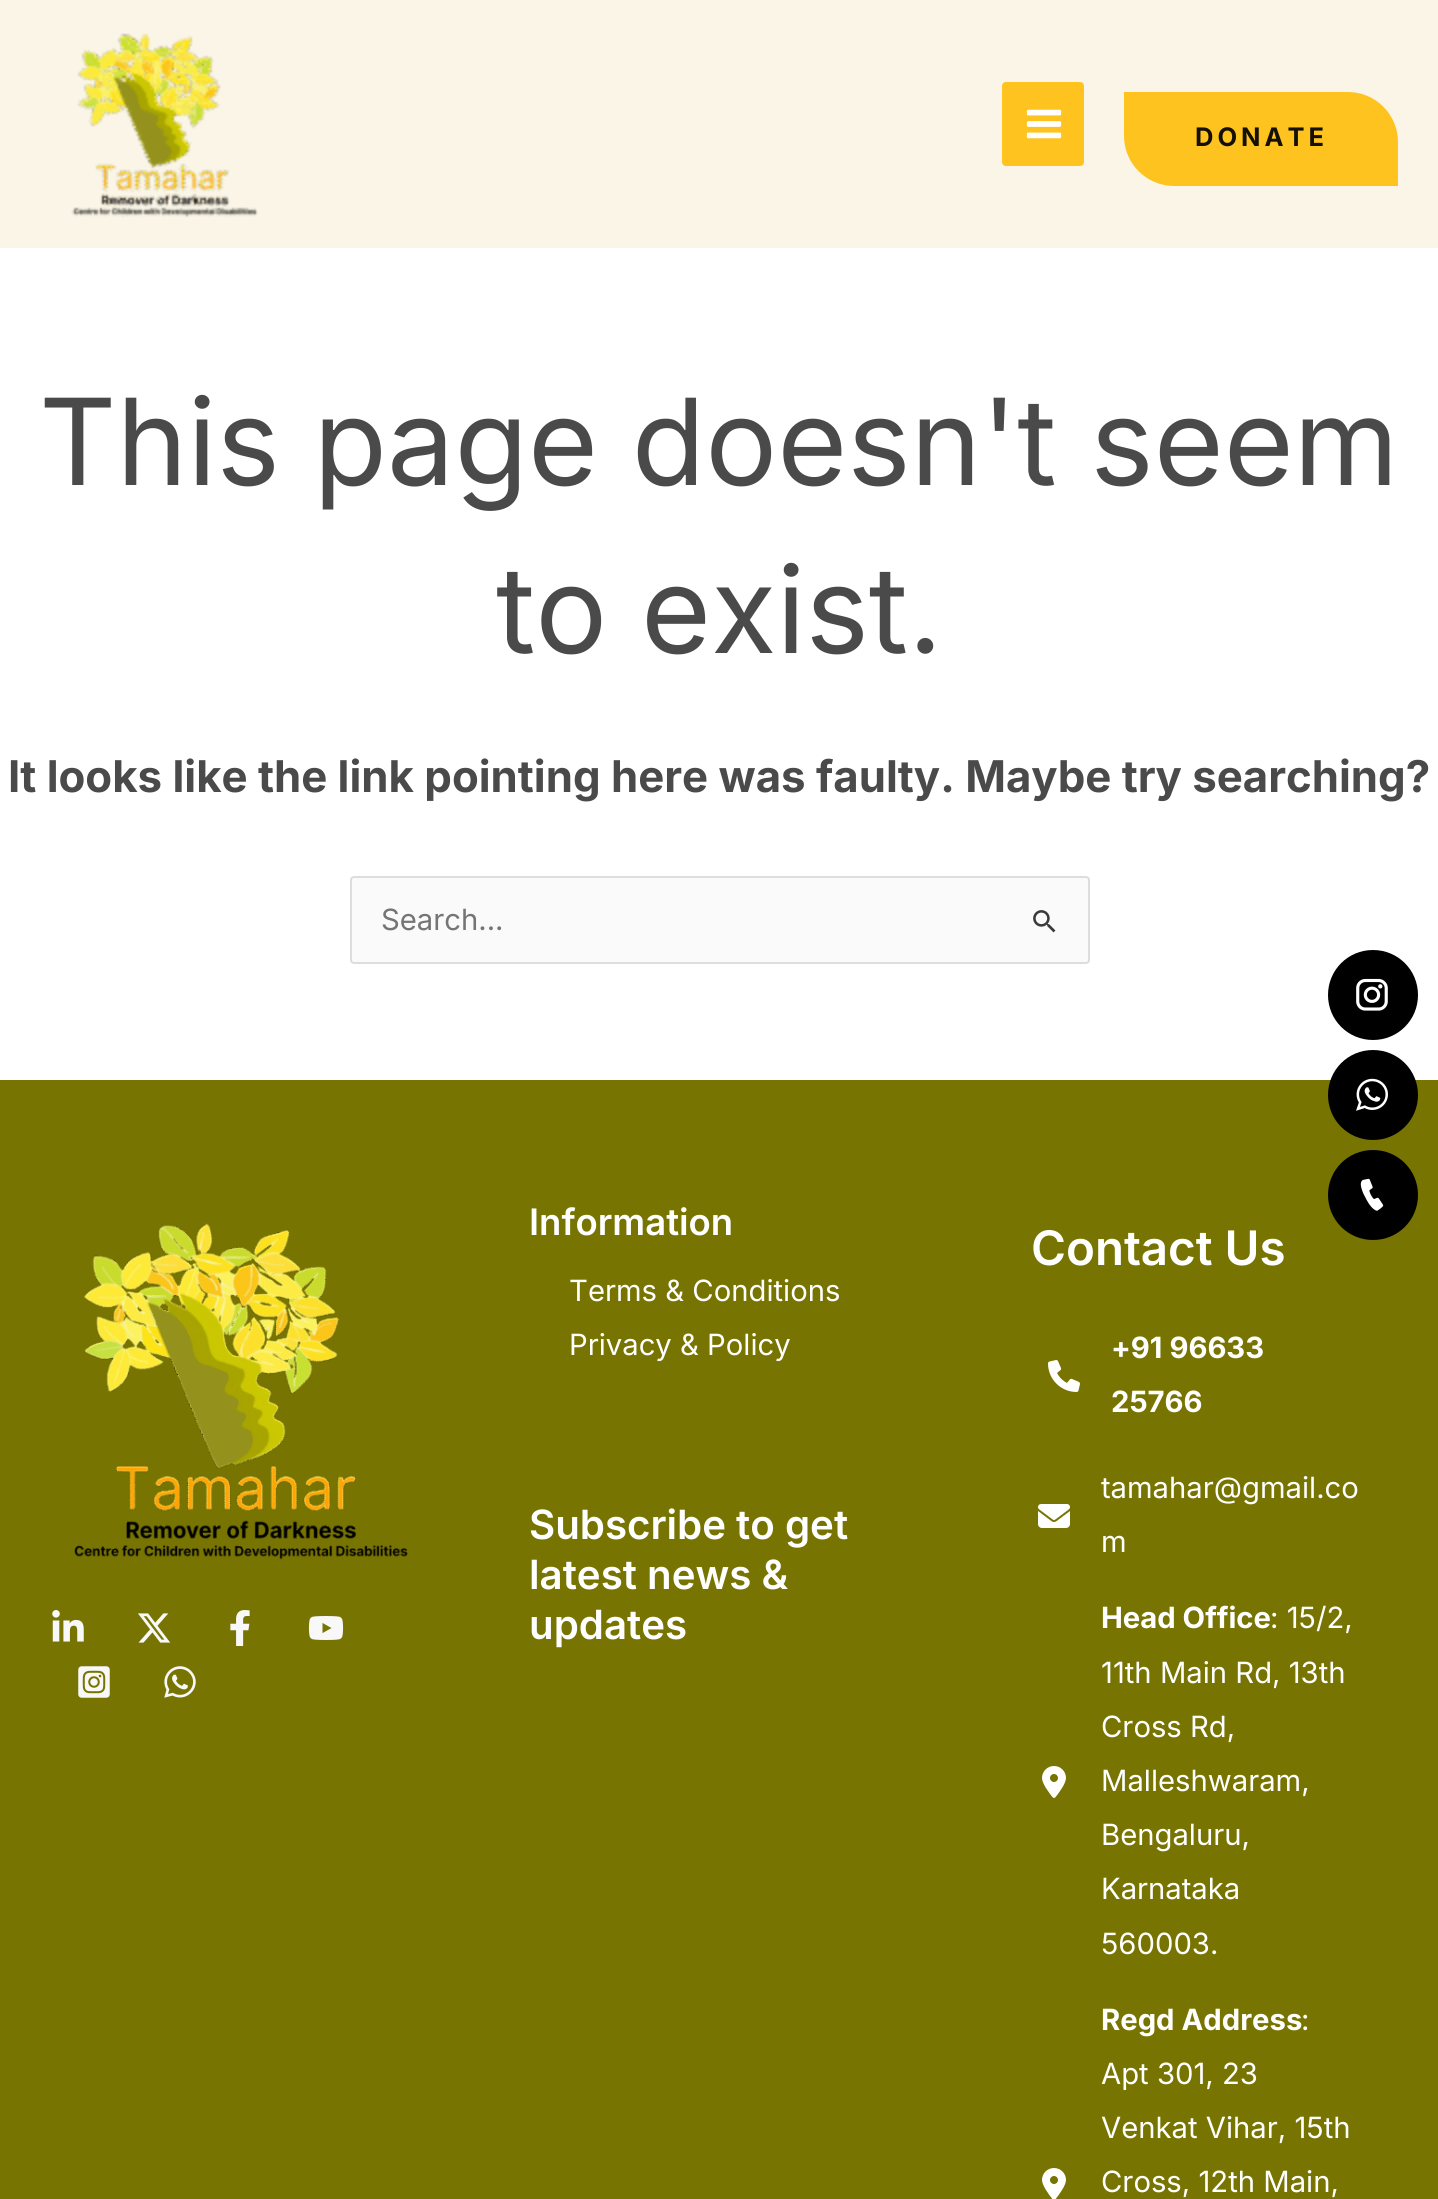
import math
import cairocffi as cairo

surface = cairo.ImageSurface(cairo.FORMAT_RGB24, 1438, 2199)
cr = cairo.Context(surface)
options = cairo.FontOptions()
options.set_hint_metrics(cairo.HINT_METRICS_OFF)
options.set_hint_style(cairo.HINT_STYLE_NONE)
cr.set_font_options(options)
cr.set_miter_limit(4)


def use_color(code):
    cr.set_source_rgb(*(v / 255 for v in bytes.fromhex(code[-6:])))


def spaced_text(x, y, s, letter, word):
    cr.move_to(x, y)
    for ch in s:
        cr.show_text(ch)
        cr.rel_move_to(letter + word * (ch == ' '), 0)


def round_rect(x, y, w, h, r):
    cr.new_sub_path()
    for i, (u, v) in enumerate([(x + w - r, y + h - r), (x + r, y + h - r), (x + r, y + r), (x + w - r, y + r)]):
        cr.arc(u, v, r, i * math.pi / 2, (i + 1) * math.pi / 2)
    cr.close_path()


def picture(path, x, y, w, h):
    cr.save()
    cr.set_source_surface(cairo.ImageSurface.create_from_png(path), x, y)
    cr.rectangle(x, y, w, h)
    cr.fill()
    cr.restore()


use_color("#ffffff")
cr.paint()
use_color("#faf5e6")
cr.rectangle(0, 0, 1438, 248)
cr.fill()
picture("img1.png", 71, 33, 187, 185)
use_color("#ffc320")
round_rect(1002, 82, 82, 84, 4)
cr.fill()
picture("img2.png", 1026, 109, 36, 30)
cr.new_path()
cr.move_to(1124, 92)
cr.line_to(1348, 92)
cr.curve_to(1375.5, 92, 1398, 114.5, 1398, 142)
cr.line_to(1398, 186)
cr.line_to(1174, 186)
cr.curve_to(1146.5, 186, 1124, 163.5, 1124, 136)
cr.close_path()
cr.fill()
cr.select_font_face("Inter", cairo.FONT_SLANT_NORMAL, cairo.FONT_WEIGHT_BOLD)
cr.set_font_size(25.5)
use_color("#141004")
spaced_text(1195, 146, "DONATE", 4, 0)
cr.select_font_face("Inter")
cr.set_font_size(120)
use_color("#4a4a4a")
cr.move_to(39, 485)
cr.show_text("This page doesn't seem")
cr.move_to(496, 653)
cr.show_text("to exist.")
cr.select_font_face("Inter", cairo.FONT_SLANT_NORMAL, cairo.FONT_WEIGHT_BOLD)
cr.set_font_size(43.75)
cr.move_to(8, 792)
cr.show_text("It looks like the link pointing here was faulty. Maybe try searching?")
use_color("#fafafa")
round_rect(351, 877, 738, 86, 3)
cr.fill_preserve()
use_color("#dddddd")
cr.stroke()
cr.select_font_face("Inter")
cr.set_font_size(29.25)
use_color("#757575")
cr.move_to(381, 930)
cr.show_text("Search...")
picture("img3.png", 1033, 910, 23, 23)
use_color("#787401")
cr.rectangle(0, 1080, 1438, 1119)
cr.fill()
picture("img4.png", 74, 1223, 334, 337)
picture("img5.png", 52, 1610, 32, 32)
picture("img6.png", 138, 1613, 33, 30)
picture("img7.png", 230, 1610, 20, 36)
picture("img8.png", 308, 1616, 36, 24)
picture("img9.png", 78, 1666, 32, 32)
picture("img10.png", 164, 1666, 32, 32)
cr.select_font_face("Inter SemiBold")
cr.set_font_size(36.5)
use_color("#ffffff")
cr.move_to(529, 1235)
cr.show_text("Information")
cr.select_font_face("Inter")
cr.set_font_size(29.25)
cr.move_to(569, 1301)
cr.show_text("Terms & Conditions")
cr.move_to(569, 1355)
cr.show_text("Privacy & Policy")
cr.select_font_face("Inter SemiBold")
cr.set_font_size(40.25)
cr.move_to(529, 1539)
cr.show_text("Subscribe to get")
cr.move_to(529, 1589)
cr.show_text("latest news &")
cr.move_to(529, 1639)
cr.show_text("updates")
cr.set_font_size(47.5)
cr.move_to(1031, 1265)
cr.show_text("Contact Us")
picture("img11.png", 1048, 1360, 32, 32)
cr.select_font_face("Inter", cairo.FONT_SLANT_NORMAL, cairo.FONT_WEIGHT_BOLD)
cr.set_font_size(29.25)
cr.move_to(1111, 1358)
cr.show_text("+91 96633")
cr.move_to(1111, 1412)
cr.show_text("25766")
picture("img12.png", 1038, 1504, 32, 24)
cr.select_font_face("Inter")
cr.move_to(1101, 1498)
cr.show_text("tamahar@gmail.co")
cr.move_to(1101, 1552)
cr.show_text("m")
picture("img13.png", 1042, 1766, 24, 32)
cr.select_font_face("Inter", cairo.FONT_SLANT_NORMAL, cairo.FONT_WEIGHT_BOLD)
cr.move_to(1101, 1628)
cr.show_text("Head Office")
cr.select_font_face("Inter")
cr.move_to(1270, 1628)
cr.show_text(": 15/2,")
cr.move_to(1101, 1683)
cr.show_text("11th Main Rd, 13th")
cr.move_to(1101, 1737)
cr.show_text("Cross Rd,")
cr.move_to(1101, 1791)
cr.show_text("Malleshwaram,")
cr.move_to(1101, 1845)
cr.show_text("Bengaluru,")
cr.move_to(1101, 1899)
cr.show_text("Karnataka")
cr.move_to(1101, 1954)
cr.show_text("560003.")
picture("img14.png", 1042, 2168, 24, 31)
cr.select_font_face("Inter", cairo.FONT_SLANT_NORMAL, cairo.FONT_WEIGHT_BOLD)
cr.move_to(1101, 2030)
cr.show_text("Regd Address")
cr.select_font_face("Inter")
cr.move_to(1301, 2030)
cr.show_text(":")
cr.move_to(1101, 2084)
cr.show_text("Apt 301, 23")
cr.move_to(1101, 2138)
cr.show_text("Venkat Vihar, 15th")
cr.move_to(1101, 2192)
cr.show_text("Cross, 12th Main,")
use_color("#000000")
cr.new_path()
cr.move_to(1373, 950)
cr.curve_to(1398, 950, 1418, 970, 1418, 995)
cr.curve_to(1418, 1020, 1398, 1040, 1373, 1040)
cr.curve_to(1348, 1040, 1328, 1020, 1328, 995)
cr.curve_to(1328, 970, 1348, 950, 1373, 950)
cr.close_path()
cr.fill()
picture("img15.png", 1356, 978, 32, 33)
cr.new_path()
cr.move_to(1373, 1050)
cr.curve_to(1398, 1050, 1418, 1070, 1418, 1095)
cr.curve_to(1418, 1120, 1398, 1140, 1373, 1140)
cr.curve_to(1348, 1140, 1328, 1120, 1328, 1095)
cr.curve_to(1328, 1070, 1348, 1050, 1373, 1050)
cr.close_path()
cr.fill()
picture("img16.png", 1356, 1078, 32, 33)
cr.new_path()
cr.move_to(1373, 1150)
cr.curve_to(1398, 1150, 1418, 1170, 1418, 1195)
cr.curve_to(1418, 1220, 1398, 1240, 1373, 1240)
cr.curve_to(1348, 1240, 1328, 1220, 1328, 1195)
cr.curve_to(1328, 1170, 1348, 1150, 1373, 1150)
cr.close_path()
cr.fill()
picture("img17.png", 1360, 1178, 24, 33)
surface.write_to_png("result.png")
